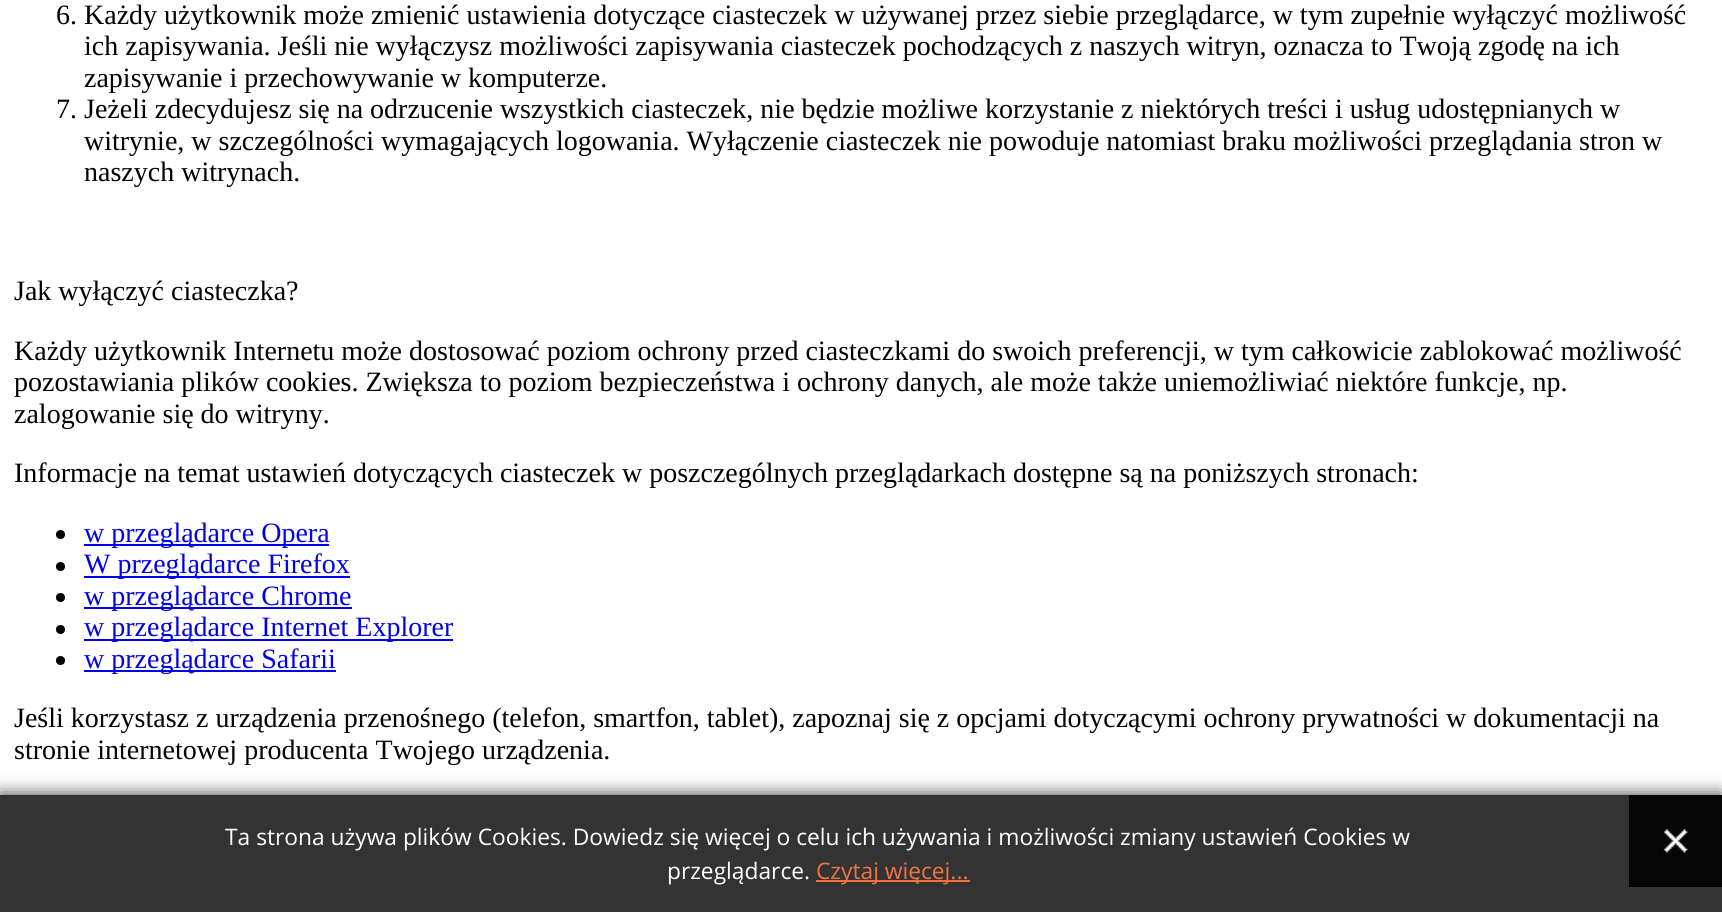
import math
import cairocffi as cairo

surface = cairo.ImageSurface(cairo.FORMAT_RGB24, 1722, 912)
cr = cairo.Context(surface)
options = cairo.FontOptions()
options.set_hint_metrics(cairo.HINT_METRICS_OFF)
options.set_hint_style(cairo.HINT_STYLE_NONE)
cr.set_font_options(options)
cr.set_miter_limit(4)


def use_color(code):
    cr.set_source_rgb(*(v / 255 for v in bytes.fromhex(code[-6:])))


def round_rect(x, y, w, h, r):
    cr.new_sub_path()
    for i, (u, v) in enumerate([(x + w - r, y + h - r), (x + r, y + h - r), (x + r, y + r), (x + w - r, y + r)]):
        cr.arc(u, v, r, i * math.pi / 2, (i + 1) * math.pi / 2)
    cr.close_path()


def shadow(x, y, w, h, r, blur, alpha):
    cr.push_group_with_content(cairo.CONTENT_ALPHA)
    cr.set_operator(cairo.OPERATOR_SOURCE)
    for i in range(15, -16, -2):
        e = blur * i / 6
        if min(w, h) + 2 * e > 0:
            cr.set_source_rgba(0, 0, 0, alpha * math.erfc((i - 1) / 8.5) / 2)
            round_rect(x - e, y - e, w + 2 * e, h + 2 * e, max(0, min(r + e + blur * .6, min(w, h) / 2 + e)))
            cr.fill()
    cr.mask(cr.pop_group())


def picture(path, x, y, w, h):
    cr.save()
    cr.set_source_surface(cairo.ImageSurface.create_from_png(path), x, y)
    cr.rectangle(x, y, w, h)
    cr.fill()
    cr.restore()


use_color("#ffffff")
cr.paint()
cr.select_font_face("Liberation Serif")
cr.set_font_size(28)
use_color("#000000")
cr.move_to(56, 24)
cr.show_text("6. Każdy użytkownik może zmienić ustawienia dotyczące ciasteczek w używanej przez siebie przeglądarce, w tym zupełnie wyłączyć możliwość")
cr.move_to(84, 55)
cr.show_text("ich zapisywania. Jeśli nie wyłączysz możliwości zapisywania ciasteczek pochodzących z naszych witryn, oznacza to Twoją zgodę na ich")
cr.move_to(84, 87)
cr.show_text("zapisywanie i przechowywanie w komputerze.")
cr.move_to(56, 118)
cr.show_text("7. Jeżeli zdecydujesz się na odrzucenie wszystkich ciasteczek, nie będzie możliwe korzystanie z niektórych treści i usług udostępnianych w")
cr.move_to(84, 150)
cr.show_text("witrynie, w szczególności wymagających logowania. Wyłączenie ciasteczek nie powoduje natomiast braku możliwości przeglądania stron w")
cr.move_to(84, 181)
cr.show_text("naszych witrynach.")
cr.move_to(14, 300)
cr.show_text("Jak wyłączyć ciasteczka?")
cr.move_to(14, 360)
cr.show_text("Każdy użytkownik Internetu może dostosować poziom ochrony przed ciasteczkami do swoich preferencji, w tym całkowicie zablokować możliwość")
cr.move_to(14, 391)
cr.show_text("pozostawiania plików cookies. Zwiększa to poziom bezpieczeństwa i ochrony danych, ale może także uniemożliwiać niektóre funkcje, np.")
cr.move_to(14, 423)
cr.show_text("zalogowanie się do witryny.")
cr.move_to(14, 482)
cr.show_text("Informacje na temat ustawień dotyczących ciasteczek w poszczególnych przeglądarkach dostępne są na poniższych stronach:")
cr.new_path()
cr.arc(60.5, 534.5, 4.5, 0, 2 * math.pi)
cr.fill()
use_color("#0000ee")
cr.rectangle(84, 544, 245, 2)
cr.fill()
cr.move_to(84, 542)
cr.show_text("w przeglądarce Opera")
use_color("#000000")
cr.new_path()
cr.arc(60.5, 566.5, 4.5, 0, 2 * math.pi)
cr.fill()
use_color("#0000ee")
cr.rectangle(84, 576, 266, 2)
cr.fill()
cr.move_to(84, 573)
cr.show_text("W przeglądarce Firefox")
use_color("#000000")
cr.new_path()
cr.arc(60.5, 597.5, 4.5, 0, 2 * math.pi)
cr.fill()
use_color("#0000ee")
cr.rectangle(84, 607, 268, 2)
cr.fill()
cr.move_to(84, 605)
cr.show_text("w przeglądarce Chrome")
use_color("#000000")
cr.new_path()
cr.arc(60.5, 629.5, 4.5, 0, 2 * math.pi)
cr.fill()
use_color("#0000ee")
cr.rectangle(84, 639, 369, 2)
cr.fill()
cr.move_to(84, 636)
cr.show_text("w przeglądarce Internet Explorer")
use_color("#000000")
cr.new_path()
cr.arc(60.5, 660.5, 4.5, 0, 2 * math.pi)
cr.fill()
use_color("#0000ee")
cr.rectangle(84, 670, 252, 2)
cr.fill()
cr.move_to(84, 668)
cr.show_text("w przeglądarce Safarii")
use_color("#000000")
cr.move_to(14, 727)
cr.show_text("Jeśli korzystasz z urządzenia przenośnego (telefon, smartfon, tablet), zapoznaj się z opcjami dotyczącymi ochrony prywatności w dokumentacji na")
cr.move_to(14, 759)
cr.show_text("stronie internetowej producenta Twojego urządzenia.")
use_color("#000000")
shadow(0, 795, 1722, 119, 0, 9, 0.8)
use_color("#333333")
cr.rectangle(0, 795, 1722, 117)
cr.fill()
cr.select_font_face("Open Sans")
cr.set_font_size(22.75)
use_color("#ffffff")
cr.move_to(225, 845)
cr.show_text("Ta strona używa plików Cookies. Dowiedz się więcej o celu ich używania i możliwości zmiany ustawień Cookies w")
cr.move_to(667, 879)
cr.show_text("przeglądarce.")
use_color("#f07241")
cr.rectangle(816, 880, 154, 2)
cr.fill()
cr.move_to(816, 879)
cr.show_text("Czytaj więcej...")
use_color("#060606")
cr.rectangle(1629, 795, 93, 92)
cr.fill()
picture("img1.png", 1663, 829, 25, 24)
surface.write_to_png("result.png")
